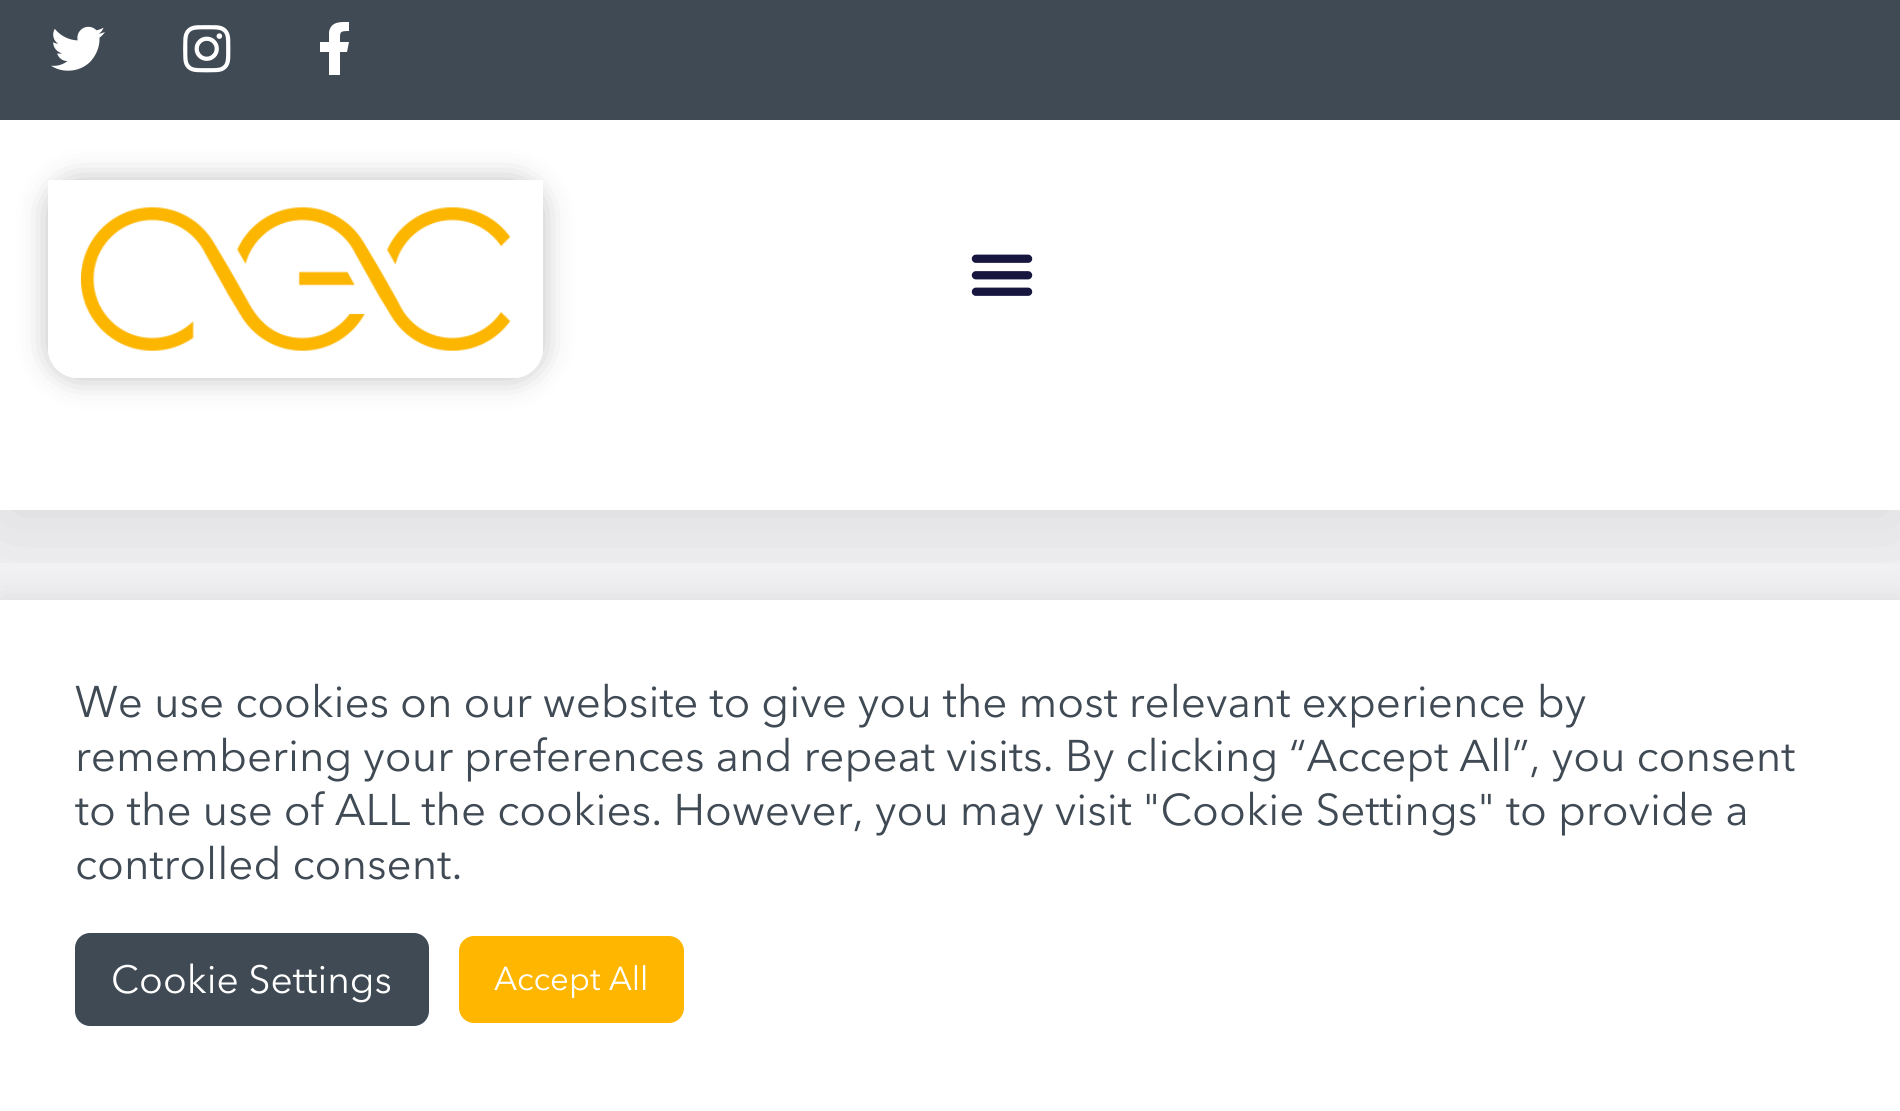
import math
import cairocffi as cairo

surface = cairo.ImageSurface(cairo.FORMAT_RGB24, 1900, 1111)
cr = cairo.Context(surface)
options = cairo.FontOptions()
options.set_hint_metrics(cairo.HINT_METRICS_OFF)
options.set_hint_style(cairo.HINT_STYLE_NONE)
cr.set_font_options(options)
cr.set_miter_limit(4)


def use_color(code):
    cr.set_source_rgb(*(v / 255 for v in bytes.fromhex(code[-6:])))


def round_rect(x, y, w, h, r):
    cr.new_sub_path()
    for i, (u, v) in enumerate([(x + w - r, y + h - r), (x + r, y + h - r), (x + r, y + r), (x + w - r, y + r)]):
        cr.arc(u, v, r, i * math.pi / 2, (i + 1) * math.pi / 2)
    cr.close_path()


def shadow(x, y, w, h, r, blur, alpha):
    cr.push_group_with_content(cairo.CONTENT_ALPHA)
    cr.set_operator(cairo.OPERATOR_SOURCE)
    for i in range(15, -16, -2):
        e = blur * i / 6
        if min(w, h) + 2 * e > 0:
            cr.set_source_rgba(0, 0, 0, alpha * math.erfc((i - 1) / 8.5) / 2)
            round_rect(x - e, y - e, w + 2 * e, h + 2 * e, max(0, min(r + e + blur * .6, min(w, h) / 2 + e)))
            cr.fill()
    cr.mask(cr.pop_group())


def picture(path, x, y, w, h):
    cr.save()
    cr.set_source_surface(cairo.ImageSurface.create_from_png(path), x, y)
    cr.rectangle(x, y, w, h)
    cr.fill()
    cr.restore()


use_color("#ffffff")
cr.paint()
use_color("#f1f1f3")
cr.rectangle(0, 510, 1900, 90)
cr.fill()
cr.save()
cr.rectangle(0, 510, 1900, 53)
cr.clip()
use_color("#000000")
shadow(0, -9, 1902, 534, 0, 45, 0.1)
cr.restore()
use_color("#404a54")
cr.rectangle(0, 0, 1900, 120)
cr.fill()
picture("img1.png", 51, 26, 54, 45)
picture("img2.png", 183, 25, 48, 48)
cr.save()
cr.rectangle(45, 21, 1431, 54)
cr.clip()
use_color("#ffffff")
cr.new_path()
cr.move_to(347, 52)
cr.line_to(340, 52)
cr.line_to(340, 76)
cr.line_to(329, 76)
cr.line_to(329, 52)
cr.line_to(320, 52)
cr.line_to(320, 42)
cr.line_to(329, 42)
cr.line_to(329, 32)
cr.curve_to(331, 21, 341, 22, 349, 22)
cr.line_to(349, 31)
cr.curve_to(339, 31, 340, 32, 340, 42)
cr.line_to(349, 42)
cr.close_path()
cr.fill()
cr.restore()
cr.save()
cr.set_fill_rule(cairo.FILL_RULE_EVEN_ODD)
cr.new_path()
cr.move_to(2, 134)
cr.line_to(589, 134)
cr.line_to(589, 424)
cr.line_to(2, 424)
cr.close_path()
cr.move_to(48, 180)
cr.line_to(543, 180)
cr.line_to(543, 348)
cr.curve_to(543, 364.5, 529.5, 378, 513, 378)
cr.line_to(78, 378)
cr.curve_to(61.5, 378, 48, 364.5, 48, 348)
cr.close_path()
cr.clip()
use_color("#000000")
shadow(48, 180, 495, 198, 30, 15, 0.25)
cr.restore()
cr.new_path()
cr.move_to(60, 192)
cr.line_to(531, 192)
cr.line_to(531, 348)
cr.curve_to(531, 358, 523, 366, 513, 366)
cr.line_to(78, 366)
cr.curve_to(68, 366, 60, 358, 60, 348)
cr.close_path()
use_color("#ffffff")
cr.set_line_width(24)
cr.stroke()
picture("img3.png", 80, 207, 431, 144)
picture("img4.png", 971, 254, 62, 42)
use_color("#acabab")
shadow(0, 597, 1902, 513, 0, 15, 0.3)
use_color("#ffffff")
cr.rectangle(0, 600, 1900, 511)
cr.fill()
cr.select_font_face("Avenir Next")
cr.set_font_size(44)
use_color("#404a54")
cr.move_to(75, 717)
cr.show_text("We use cookies on our website to give you the most relevant experience by")
cr.move_to(75, 771)
cr.show_text("remembering your preferences and repeat visits. By clicking “Accept All”, you consent")
cr.move_to(75, 825)
cr.show_text("to the use of ALL the cookies. However, you may visit \"Cookie Settings\" to provide a")
cr.move_to(75, 879)
cr.show_text("controlled consent.")
use_color("#3f4a54")
round_rect(75, 933, 354, 93, 15)
cr.fill()
cr.set_font_size(39)
use_color("#ffffff")
cr.move_to(111, 993)
cr.show_text("Cookie Settings")
use_color("#ffb600")
round_rect(459, 936, 225, 87, 15)
cr.fill()
cr.set_font_size(33)
use_color("#ffffff")
cr.move_to(494, 990)
cr.show_text("Accept All")
surface.write_to_png("result.png")
